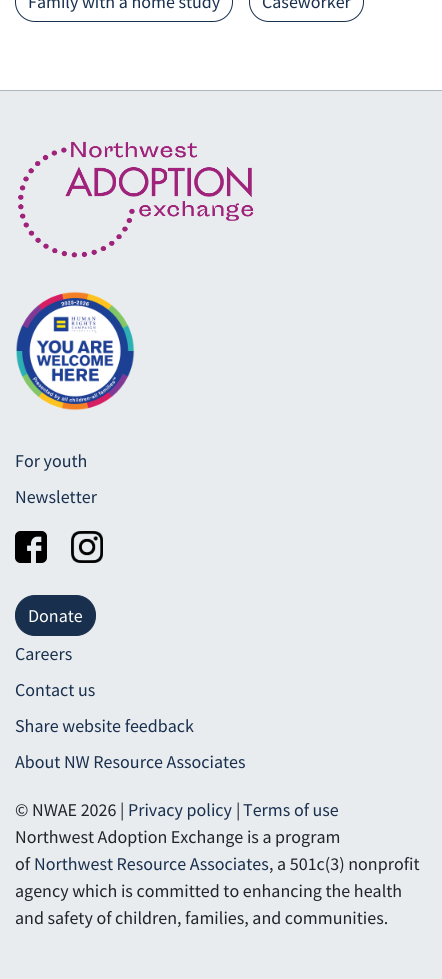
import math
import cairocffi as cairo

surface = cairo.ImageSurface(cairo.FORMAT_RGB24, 442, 979)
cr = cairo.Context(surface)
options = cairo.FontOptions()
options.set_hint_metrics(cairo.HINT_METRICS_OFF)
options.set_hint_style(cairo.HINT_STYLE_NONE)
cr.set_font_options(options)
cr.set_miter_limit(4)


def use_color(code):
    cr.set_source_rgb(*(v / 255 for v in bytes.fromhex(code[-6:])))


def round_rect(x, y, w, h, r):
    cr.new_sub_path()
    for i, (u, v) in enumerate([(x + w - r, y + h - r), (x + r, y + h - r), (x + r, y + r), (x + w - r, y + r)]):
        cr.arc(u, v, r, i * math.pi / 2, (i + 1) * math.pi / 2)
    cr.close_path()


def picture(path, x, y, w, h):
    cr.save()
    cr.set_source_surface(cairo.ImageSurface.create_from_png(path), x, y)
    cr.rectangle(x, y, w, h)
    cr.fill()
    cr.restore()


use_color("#ffffff")
cr.paint()
round_rect(15.5, -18.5, 217, 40, 19.5)
use_color("#182f4d")
cr.set_line_width(1)
cr.stroke()
cr.select_font_face("Source Sans Pro")
cr.set_font_size(18)
cr.move_to(28, 8)
cr.show_text("Family with a home study")
round_rect(249.5, -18.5, 114, 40, 19.5)
cr.stroke()
cr.move_to(262, 8)
cr.show_text("Caseworker")
use_color("#e9ecef")
cr.rectangle(0, 91, 442, 888)
cr.fill()
use_color("#adb5bd")
cr.rectangle(0, 90, 442, 1)
cr.fill()
picture("img1.png", 18, 141, 236, 117)
picture("img2.png", 16, 291, 119, 120)
use_color("#182f4d")
cr.move_to(15, 467)
cr.show_text("For youth")
cr.move_to(15, 503)
cr.show_text("Newsletter")
picture("img3.png", 15, 531, 32, 32)
picture("img4.png", 71, 531, 32, 32)
round_rect(15.5, 595.5, 80, 40, 19.5)
cr.fill_preserve()
cr.stroke()
use_color("#ffffff")
cr.move_to(28, 622)
cr.show_text("Donate")
use_color("#182f4d")
cr.move_to(15, 660)
cr.show_text("Careers")
cr.move_to(15, 696)
cr.show_text("Contact us")
cr.move_to(15, 732)
cr.show_text("Share website feedback")
cr.move_to(15, 768)
cr.show_text("About NW Resource Associates")
use_color("#212529")
cr.move_to(15, 816)
cr.show_text("© NWAE 2026 |")
use_color("#182f4d")
cr.move_to(128, 816)
cr.show_text("Privacy policy")
use_color("#212529")
cr.move_to(236, 816)
cr.show_text("|")
use_color("#182f4d")
cr.move_to(243, 816)
cr.show_text("Terms of use")
use_color("#212529")
cr.move_to(15, 843)
cr.show_text("Northwest Adoption Exchange is a program")
cr.move_to(15, 870)
cr.show_text("of")
use_color("#182f4d")
cr.move_to(34, 870)
cr.show_text("Northwest Resource Associates")
use_color("#212529")
cr.move_to(269, 870)
cr.show_text(", a 501c(3) nonprofit")
cr.move_to(15, 897)
cr.show_text("agency which is committed to enhancing the health")
cr.move_to(15, 924)
cr.show_text("and safety of children, families, and communities.")
surface.write_to_png("result.png")
